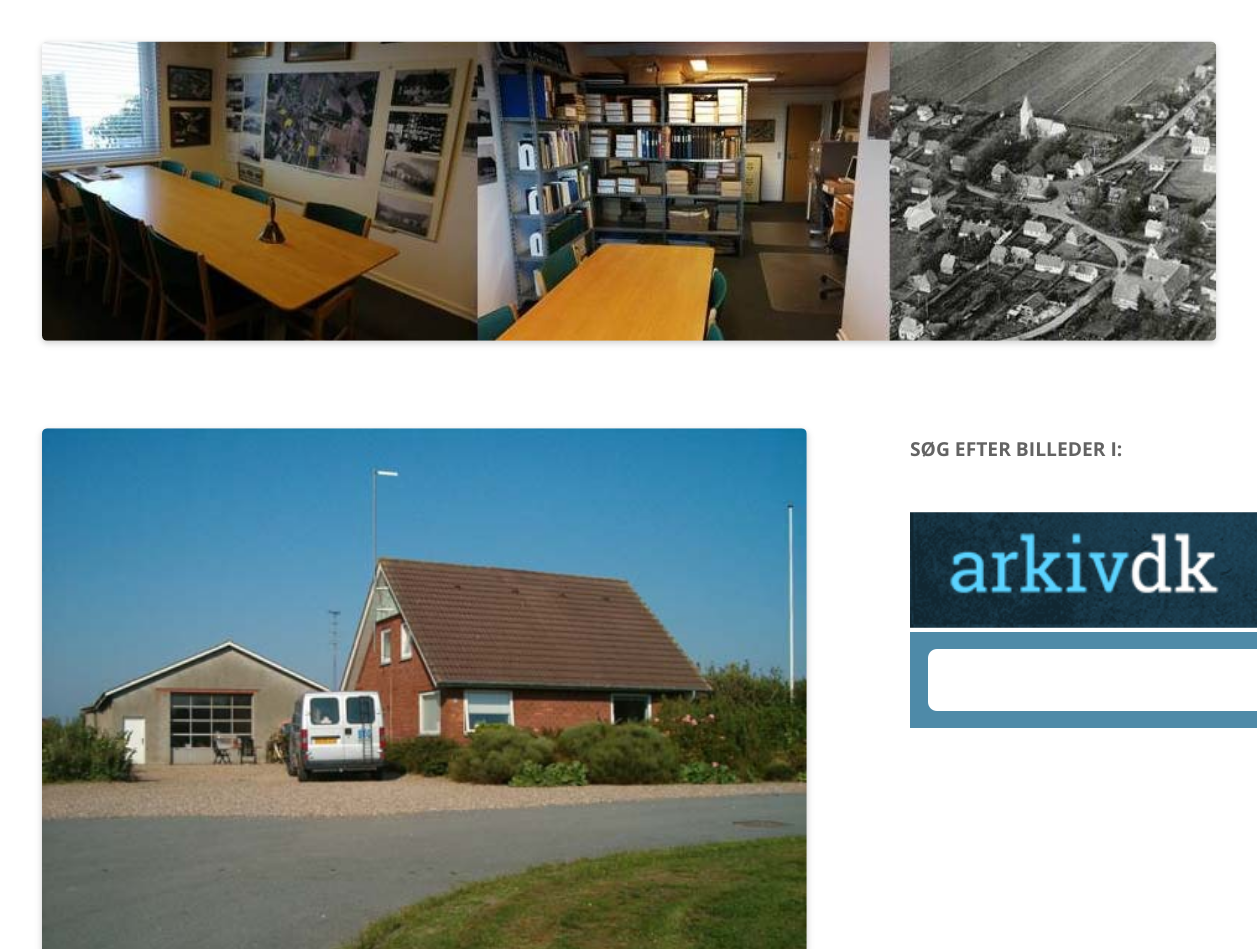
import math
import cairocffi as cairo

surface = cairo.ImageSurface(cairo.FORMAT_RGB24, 1257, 949)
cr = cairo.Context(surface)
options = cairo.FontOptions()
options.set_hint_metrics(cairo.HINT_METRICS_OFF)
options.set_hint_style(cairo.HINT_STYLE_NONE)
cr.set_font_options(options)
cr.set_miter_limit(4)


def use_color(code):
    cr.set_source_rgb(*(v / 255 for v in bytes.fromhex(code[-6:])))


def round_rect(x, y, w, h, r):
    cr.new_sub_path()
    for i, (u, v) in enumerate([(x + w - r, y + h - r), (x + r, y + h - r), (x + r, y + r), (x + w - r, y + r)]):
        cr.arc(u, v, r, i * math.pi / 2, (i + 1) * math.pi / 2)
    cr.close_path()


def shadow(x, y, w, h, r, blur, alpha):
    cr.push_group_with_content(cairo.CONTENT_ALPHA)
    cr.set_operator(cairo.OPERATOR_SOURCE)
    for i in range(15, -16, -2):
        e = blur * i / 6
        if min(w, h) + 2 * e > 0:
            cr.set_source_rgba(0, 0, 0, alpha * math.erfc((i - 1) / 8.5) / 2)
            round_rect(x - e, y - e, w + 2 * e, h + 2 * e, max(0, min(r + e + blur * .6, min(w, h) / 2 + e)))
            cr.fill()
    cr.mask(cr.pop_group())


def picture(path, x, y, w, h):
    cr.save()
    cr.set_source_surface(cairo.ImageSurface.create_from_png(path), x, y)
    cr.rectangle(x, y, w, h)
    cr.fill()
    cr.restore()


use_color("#ffffff")
cr.paint()
use_color("#000000")
shadow(42, 44, 1174, 299, 5, 3.5, 0.2)
picture("img1.png", 42, 41, 1175, 300)
shadow(42, 431, 765, 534, 5, 3.5, 0.2)
picture("img2.png", 42, 428, 765, 521)
cr.select_font_face("Open Sans", cairo.FONT_SLANT_NORMAL, cairo.FONT_WEIGHT_BOLD)
cr.set_font_size(19.25)
use_color("#636363")
cr.move_to(910, 456)
cr.show_text("SØG EFTER BILLEDER I:")
picture("img3.png", 910, 512, 347, 116)
picture("img4.png", 949, 532, 270, 62)
use_color("#4e8aa8")
cr.rectangle(910, 632, 347, 96)
cr.fill()
use_color("#ffffff")
cr.new_path()
cr.move_to(937, 649)
cr.line_to(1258, 649)
cr.line_to(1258, 711)
cr.line_to(937, 711)
cr.curve_to(932, 711, 928, 707, 928, 702)
cr.line_to(928, 658)
cr.curve_to(928, 653, 932, 649, 937, 649)
cr.close_path()
cr.fill()
surface.write_to_png("result.png")
